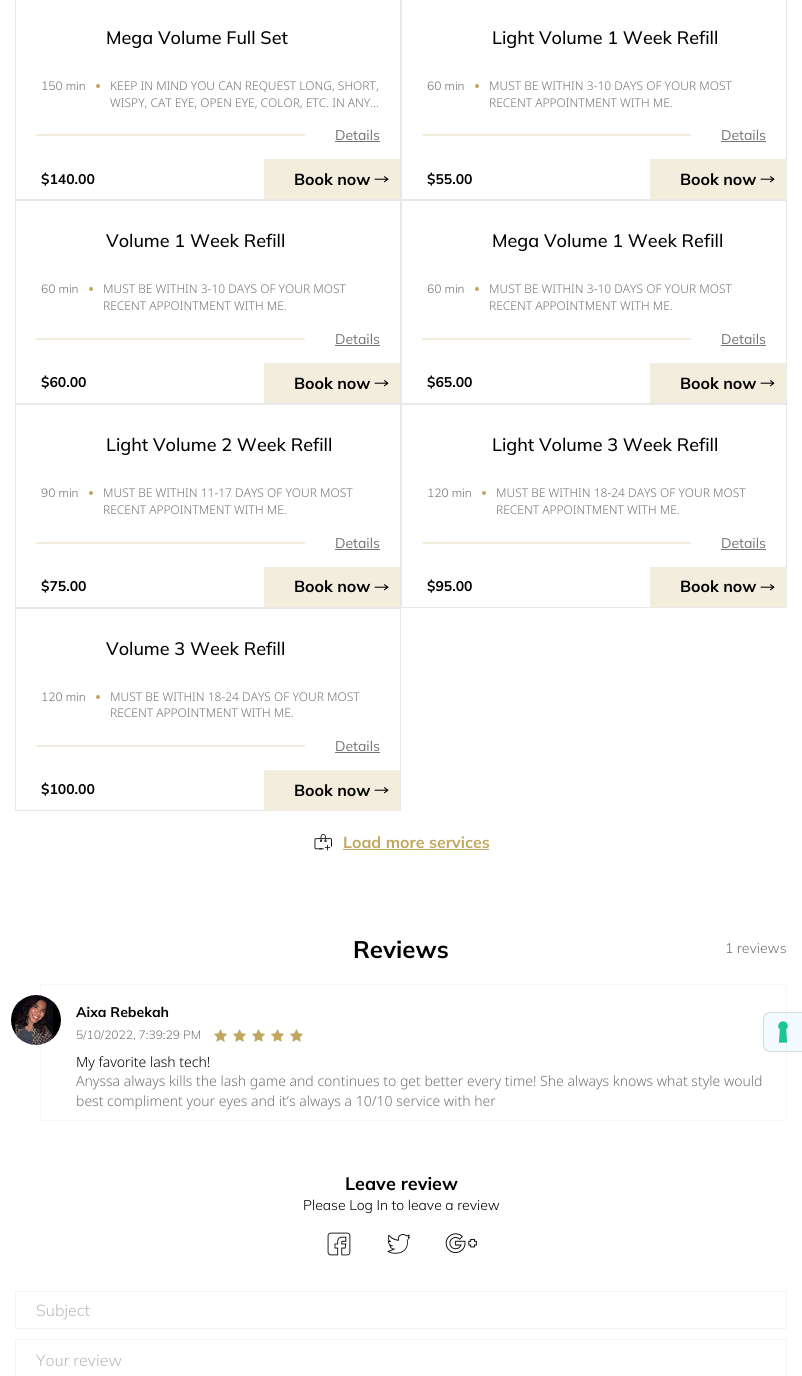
import math
import cairocffi as cairo

surface = cairo.ImageSurface(cairo.FORMAT_RGB24, 802, 1376)
cr = cairo.Context(surface)
options = cairo.FontOptions()
options.set_hint_metrics(cairo.HINT_METRICS_OFF)
options.set_hint_style(cairo.HINT_STYLE_NONE)
cr.set_font_options(options)
cr.set_miter_limit(4)


def use_color(code):
    cr.set_source_rgb(*(v / 255 for v in bytes.fromhex(code[-6:])))


def picture(path, x, y, w, h):
    cr.save()
    cr.set_source_surface(cairo.ImageSurface.create_from_png(path), x, y)
    cr.rectangle(x, y, w, h)
    cr.fill()
    cr.restore()


use_color("#ffffff")
cr.paint()
cr.rectangle(15.5, -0.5, 385, 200)
use_color("#e8e8e8")
cr.set_line_width(1)
cr.stroke()
cr.select_font_face("Mulish Medium")
cr.set_font_size(18)
use_color("#000000")
cr.move_to(106, 44)
cr.show_text("Mega Volume Full Set")
cr.select_font_face("Mulish Light")
cr.set_font_size(12)
use_color("#737373")
cr.move_to(41, 90)
cr.show_text("150 min")
use_color("#c2a65c")
cr.new_path()
cr.arc(98, 86, 2, 0, 2 * math.pi)
cr.fill()
cr.select_font_face("Noto Sans Light")
use_color("#737373")
cr.move_to(110, 90)
cr.show_text("KEEP IN MIND YOU CAN REQUEST LONG, SHORT,")
cr.move_to(110, 107)
cr.show_text("WISPY, CAT EYE, OPEN EYE, COLOR, ETC. IN ANY…")
use_color("#f3edde")
cr.rectangle(36, 134, 269, 2)
cr.fill()
cr.select_font_face("Mulish")
cr.set_font_size(14)
use_color("#737373")
cr.move_to(335, 140)
cr.show_text("Details")
cr.rectangle(335, 141, 45, 1)
cr.fill()
cr.select_font_face("Mulish", cairo.FONT_SLANT_NORMAL, cairo.FONT_WEIGHT_BOLD)
use_color("#000000")
cr.move_to(41, 184)
cr.show_text("$140.00")
use_color("#f3edde")
cr.rectangle(264, 159, 136, 40)
cr.fill()
cr.set_font_size(16)
use_color("#000000")
cr.move_to(294, 185)
cr.show_text("Book now")
picture("img1.png", 374, 176, 15, 7)
cr.rectangle(401.5, -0.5, 385, 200)
use_color("#e8e8e8")
cr.stroke()
cr.select_font_face("Mulish Medium")
cr.set_font_size(18)
use_color("#000000")
cr.move_to(492, 44)
cr.show_text("Light Volume 1 Week Refill")
cr.select_font_face("Mulish Light")
cr.set_font_size(12)
use_color("#737373")
cr.move_to(427, 90)
cr.show_text("60 min")
use_color("#c2a65c")
cr.new_path()
cr.arc(477, 86, 2, 0, 2 * math.pi)
cr.fill()
cr.select_font_face("Noto Sans Light")
use_color("#737373")
cr.move_to(489, 90)
cr.show_text("MUST BE WITHIN 3-10 DAYS OF YOUR MOST")
cr.move_to(489, 107)
cr.show_text("RECENT APPOINTMENT WITH ME.")
use_color("#f3edde")
cr.rectangle(422, 134, 269, 2)
cr.fill()
cr.select_font_face("Mulish")
cr.set_font_size(14)
use_color("#737373")
cr.move_to(721, 140)
cr.show_text("Details")
cr.rectangle(721, 141, 45, 1)
cr.fill()
cr.select_font_face("Mulish", cairo.FONT_SLANT_NORMAL, cairo.FONT_WEIGHT_BOLD)
use_color("#000000")
cr.move_to(427, 184)
cr.show_text("$55.00")
use_color("#f3edde")
cr.rectangle(650, 159, 136, 40)
cr.fill()
cr.set_font_size(16)
use_color("#000000")
cr.move_to(680, 185)
cr.show_text("Book now")
picture("img1.png", 760, 176, 15, 7)
cr.rectangle(15.5, 200.5, 385, 203)
use_color("#e8e8e8")
cr.stroke()
cr.select_font_face("Mulish Medium")
cr.set_font_size(18)
use_color("#000000")
cr.move_to(106, 247)
cr.show_text("Volume 1 Week Refill")
cr.select_font_face("Mulish Light")
cr.set_font_size(12)
use_color("#737373")
cr.move_to(41, 293)
cr.show_text("60 min")
use_color("#c2a65c")
cr.new_path()
cr.arc(91, 289, 2, 0, 2 * math.pi)
cr.fill()
cr.select_font_face("Noto Sans Light")
use_color("#737373")
cr.move_to(103, 293)
cr.show_text("MUST BE WITHIN 3-10 DAYS OF YOUR MOST")
cr.move_to(103, 310)
cr.show_text("RECENT APPOINTMENT WITH ME.")
use_color("#f3edde")
cr.rectangle(36, 338, 269, 2)
cr.fill()
cr.select_font_face("Mulish")
cr.set_font_size(14)
use_color("#737373")
cr.move_to(335, 344)
cr.show_text("Details")
cr.rectangle(335, 345, 45, 1)
cr.fill()
cr.select_font_face("Mulish", cairo.FONT_SLANT_NORMAL, cairo.FONT_WEIGHT_BOLD)
use_color("#000000")
cr.move_to(41, 387)
cr.show_text("$60.00")
use_color("#f3edde")
cr.rectangle(264, 363, 136, 40)
cr.fill()
cr.set_font_size(16)
use_color("#000000")
cr.move_to(294, 389)
cr.show_text("Book now")
picture("img1.png", 374, 380, 15, 7)
cr.rectangle(401.5, 200.5, 385, 203)
use_color("#e8e8e8")
cr.stroke()
cr.select_font_face("Mulish Medium")
cr.set_font_size(18)
use_color("#000000")
cr.move_to(492, 247)
cr.show_text("Mega Volume 1 Week Refill")
cr.select_font_face("Mulish Light")
cr.set_font_size(12)
use_color("#737373")
cr.move_to(427, 293)
cr.show_text("60 min")
use_color("#c2a65c")
cr.new_path()
cr.arc(477, 289, 2, 0, 2 * math.pi)
cr.fill()
cr.select_font_face("Noto Sans Light")
use_color("#737373")
cr.move_to(489, 293)
cr.show_text("MUST BE WITHIN 3-10 DAYS OF YOUR MOST")
cr.move_to(489, 310)
cr.show_text("RECENT APPOINTMENT WITH ME.")
use_color("#f3edde")
cr.rectangle(422, 338, 269, 2)
cr.fill()
cr.select_font_face("Mulish")
cr.set_font_size(14)
use_color("#737373")
cr.move_to(721, 344)
cr.show_text("Details")
cr.rectangle(721, 345, 45, 1)
cr.fill()
cr.select_font_face("Mulish", cairo.FONT_SLANT_NORMAL, cairo.FONT_WEIGHT_BOLD)
use_color("#000000")
cr.move_to(427, 387)
cr.show_text("$65.00")
use_color("#f3edde")
cr.rectangle(650, 363, 136, 40)
cr.fill()
cr.set_font_size(16)
use_color("#000000")
cr.move_to(680, 389)
cr.show_text("Book now")
picture("img1.png", 760, 380, 15, 7)
cr.rectangle(15.5, 404.5, 385, 203)
use_color("#e8e8e8")
cr.stroke()
cr.select_font_face("Mulish Medium")
cr.set_font_size(18)
use_color("#000000")
cr.move_to(106, 451)
cr.show_text("Light Volume 2 Week Refill")
cr.select_font_face("Mulish Light")
cr.set_font_size(12)
use_color("#737373")
cr.move_to(41, 497)
cr.show_text("90 min")
use_color("#c2a65c")
cr.new_path()
cr.arc(91, 493, 2, 0, 2 * math.pi)
cr.fill()
cr.select_font_face("Noto Sans Light")
use_color("#737373")
cr.move_to(103, 497)
cr.show_text("MUST BE WITHIN 11-17 DAYS OF YOUR MOST")
cr.move_to(103, 514)
cr.show_text("RECENT APPOINTMENT WITH ME.")
use_color("#f3edde")
cr.rectangle(36, 542, 269, 2)
cr.fill()
cr.select_font_face("Mulish")
cr.set_font_size(14)
use_color("#737373")
cr.move_to(335, 548)
cr.show_text("Details")
cr.rectangle(335, 549, 45, 1)
cr.fill()
cr.select_font_face("Mulish", cairo.FONT_SLANT_NORMAL, cairo.FONT_WEIGHT_BOLD)
use_color("#000000")
cr.move_to(41, 591)
cr.show_text("$75.00")
use_color("#f3edde")
cr.rectangle(264, 567, 136, 40)
cr.fill()
cr.set_font_size(16)
use_color("#000000")
cr.move_to(294, 592)
cr.show_text("Book now")
picture("img1.png", 374, 584, 15, 7)
cr.rectangle(401.5, 404.5, 385, 203)
use_color("#e8e8e8")
cr.stroke()
cr.select_font_face("Mulish Medium")
cr.set_font_size(18)
use_color("#000000")
cr.move_to(492, 451)
cr.show_text("Light Volume 3 Week Refill")
cr.select_font_face("Mulish Light")
cr.set_font_size(12)
use_color("#737373")
cr.move_to(427, 497)
cr.show_text("120 min")
use_color("#c2a65c")
cr.new_path()
cr.arc(484, 493, 2, 0, 2 * math.pi)
cr.fill()
cr.select_font_face("Noto Sans Light")
use_color("#737373")
cr.move_to(496, 497)
cr.show_text("MUST BE WITHIN 18-24 DAYS OF YOUR MOST")
cr.move_to(496, 514)
cr.show_text("RECENT APPOINTMENT WITH ME.")
use_color("#f3edde")
cr.rectangle(422, 542, 269, 2)
cr.fill()
cr.select_font_face("Mulish")
cr.set_font_size(14)
use_color("#737373")
cr.move_to(721, 548)
cr.show_text("Details")
cr.rectangle(721, 549, 45, 1)
cr.fill()
cr.select_font_face("Mulish", cairo.FONT_SLANT_NORMAL, cairo.FONT_WEIGHT_BOLD)
use_color("#000000")
cr.move_to(427, 591)
cr.show_text("$95.00")
use_color("#f3edde")
cr.rectangle(650, 567, 136, 40)
cr.fill()
cr.set_font_size(16)
use_color("#000000")
cr.move_to(680, 592)
cr.show_text("Book now")
picture("img1.png", 760, 584, 15, 7)
cr.rectangle(15.5, 608.5, 385, 202)
use_color("#e8e8e8")
cr.stroke()
cr.select_font_face("Mulish Medium")
cr.set_font_size(18)
use_color("#000000")
cr.move_to(106, 655)
cr.show_text("Volume 3 Week Refill")
cr.select_font_face("Mulish Light")
cr.set_font_size(12)
use_color("#737373")
cr.move_to(41, 701)
cr.show_text("120 min")
use_color("#c2a65c")
cr.new_path()
cr.arc(98, 697, 2, 0, 2 * math.pi)
cr.fill()
cr.select_font_face("Noto Sans Light")
use_color("#737373")
cr.move_to(110, 701)
cr.show_text("MUST BE WITHIN 18-24 DAYS OF YOUR MOST")
cr.move_to(110, 717)
cr.show_text("RECENT APPOINTMENT WITH ME.")
use_color("#f3edde")
cr.rectangle(36, 745, 269, 2)
cr.fill()
cr.select_font_face("Mulish")
cr.set_font_size(14)
use_color("#737373")
cr.move_to(335, 751)
cr.show_text("Details")
cr.rectangle(335, 752, 45, 1)
cr.fill()
cr.select_font_face("Mulish", cairo.FONT_SLANT_NORMAL, cairo.FONT_WEIGHT_BOLD)
use_color("#000000")
cr.move_to(41, 794)
cr.show_text("$100.00")
use_color("#f3edde")
cr.rectangle(264, 770, 136, 40)
cr.fill()
cr.set_font_size(16)
use_color("#000000")
cr.move_to(294, 796)
cr.show_text("Book now")
picture("img1.png", 374, 787, 15, 7)
picture("img2.png", 314, 834, 18, 17)
use_color("#c2a65c")
cr.move_to(343, 848)
cr.show_text("Load more services")
cr.rectangle(343, 849, 146, 1)
cr.fill()
cr.set_font_size(24)
use_color("#000000")
cr.move_to(353, 958)
cr.show_text("Reviews")
cr.select_font_face("Mulish Light")
cr.set_font_size(14)
use_color("#737373")
cr.move_to(725, 953)
cr.show_text("1 reviews")
cr.rectangle(40.5, 984.5, 746, 136)
use_color("#f8f8f8")
cr.stroke()
picture("img3.png", 11, 995, 50, 50)
cr.select_font_face("Mulish", cairo.FONT_SLANT_NORMAL, cairo.FONT_WEIGHT_BOLD)
use_color("#000000")
cr.move_to(76, 1017)
cr.show_text("Aixa Rebekah")
cr.select_font_face("Mulish Light")
cr.set_font_size(12)
use_color("#737373")
cr.move_to(76, 1039)
cr.show_text("5/10/2022, 7:39:29 PM")
picture("img4.png", 214, 1029, 13, 13)
picture("img5.png", 214, 1029, 13, 13)
picture("img4.png", 233, 1029, 13, 13)
picture("img5.png", 233, 1029, 13, 13)
picture("img4.png", 252, 1029, 13, 13)
picture("img5.png", 252, 1029, 13, 13)
picture("img4.png", 271, 1029, 13, 13)
picture("img5.png", 271, 1029, 13, 13)
picture("img4.png", 290, 1029, 13, 13)
picture("img5.png", 290, 1029, 13, 13)
cr.select_font_face("Noto Sans Light")
cr.set_font_size(14)
use_color("#000000")
cr.move_to(76, 1067)
cr.show_text("My favorite lash tech!")
use_color("#737373")
cr.move_to(76, 1086)
cr.show_text("Anyssa always kills the lash game and continues to get better every time! She always knows what style would")
cr.move_to(76, 1106)
cr.show_text("best compliment your eyes and it’s always a 10/10 service with her")
cr.select_font_face("Mulish", cairo.FONT_SLANT_NORMAL, cairo.FONT_WEIGHT_BOLD)
cr.set_font_size(18)
use_color("#000000")
cr.move_to(345, 1190)
cr.show_text("Leave review")
cr.select_font_face("Mulish Light")
cr.set_font_size(14)
cr.move_to(303, 1210)
cr.show_text("Please Log In to leave a review")
picture("img6.png", 327, 1232, 24, 24)
picture("img7.png", 387, 1234, 24, 20)
picture("img8.png", 445, 1233, 32, 20)
cr.rectangle(15.5, 1291.5, 771, 37)
use_color("#f4f4f4")
cr.stroke()
cr.set_font_size(16)
use_color("#bababa")
cr.move_to(36, 1316)
cr.show_text("Subject")
cr.rectangle(15.5, 1339.5, 771, 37)
use_color("#f4f4f4")
cr.stroke()
use_color("#bababa")
cr.move_to(36, 1366)
cr.show_text("Your review")
cr.new_path()
cr.move_to(770, 1012.5)
cr.line_to(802.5, 1012.5)
cr.line_to(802.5, 1051.5)
cr.line_to(770, 1051.5)
cr.curve_to(766.5, 1051.5, 763.5, 1048.5, 763.5, 1045)
cr.line_to(763.5, 1019)
cr.curve_to(763.5, 1015.5, 766.5, 1012.5, 770, 1012.5)
cr.close_path()
cr.set_source_rgba(0, 0, 0, 0.15)
cr.stroke()
cr.set_source_rgba(0.024, 0.678, 0.937, 0.05)
cr.rectangle(764, 1013, 38, 38)
cr.fill()
picture("img9.png", 778, 1021, 10, 22)
surface.write_to_png("result.png")
